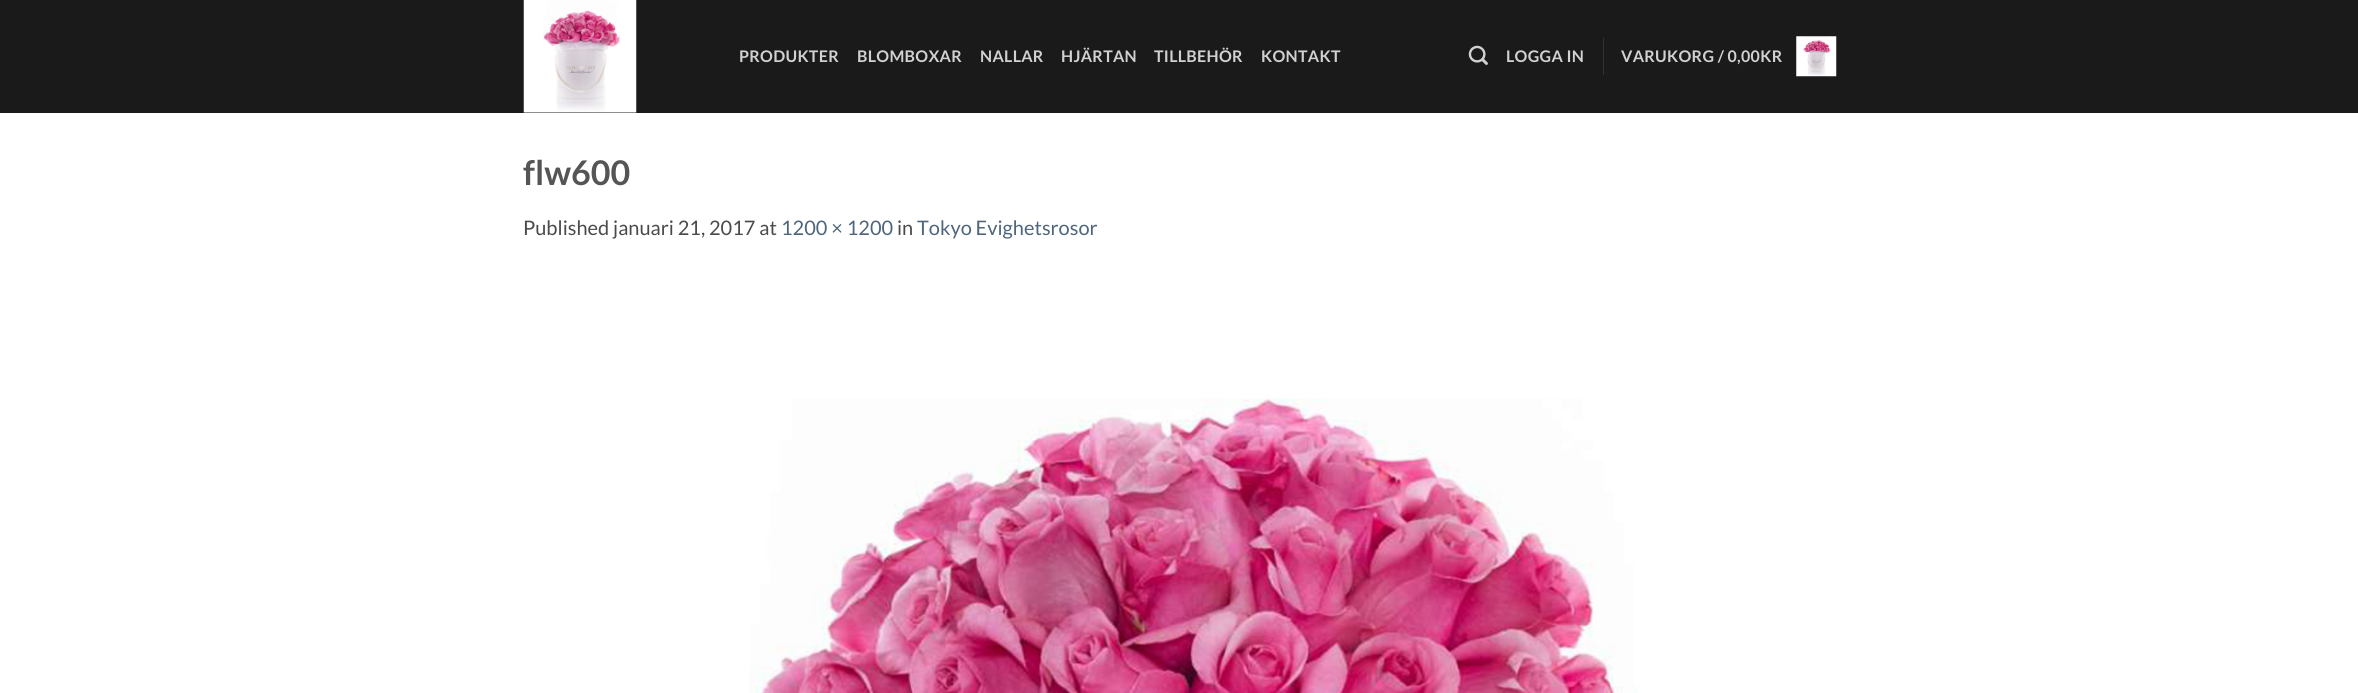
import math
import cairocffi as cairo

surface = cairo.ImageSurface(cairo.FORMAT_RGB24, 2358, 693)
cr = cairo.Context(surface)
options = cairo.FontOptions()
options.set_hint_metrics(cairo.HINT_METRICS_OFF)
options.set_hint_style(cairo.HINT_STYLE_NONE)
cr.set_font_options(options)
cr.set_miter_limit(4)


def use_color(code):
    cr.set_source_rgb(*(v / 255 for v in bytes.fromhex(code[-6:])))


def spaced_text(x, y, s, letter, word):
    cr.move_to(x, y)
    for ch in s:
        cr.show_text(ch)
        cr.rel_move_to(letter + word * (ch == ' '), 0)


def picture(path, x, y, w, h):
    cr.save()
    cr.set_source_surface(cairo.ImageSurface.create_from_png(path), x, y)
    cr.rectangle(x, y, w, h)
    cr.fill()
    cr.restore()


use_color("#ffffff")
cr.paint()
use_color("#1a1a1a")
cr.rectangle(0, 0, 2358, 113)
cr.fill()
picture("img1.png", 523, 0, 114, 113)
cr.select_font_face("Lato", cairo.FONT_SLANT_NORMAL, cairo.FONT_WEIGHT_BOLD)
cr.set_font_size(16)
use_color("#d1d1d1")
spaced_text(739, 62, "PRODUKTER", 0.3, 0)
spaced_text(857, 62, "BLOMBOXAR", 0.3, 0)
spaced_text(980, 62, "NALLAR", 0.3, 0)
spaced_text(1061, 62, "HJÄRTAN", 0.3, 0)
spaced_text(1154, 62, "TILLBEHÖR", 0.3, 0)
spaced_text(1261, 62, "KONTAKT", 0.3, 0)
picture("img2.png", 1468, 45, 20, 20)
spaced_text(1506, 62, "LOGGA IN", 0.3, 0)
use_color("#313131")
cr.rectangle(1603, 38, 1, 37)
cr.fill()
use_color("#d1d1d1")
spaced_text(1621, 62, "VARUKORG / 0,00KR", 0.3, 0)
picture("img3.png", 1796, 36, 41, 41)
cr.set_font_size(34)
use_color("#555555")
cr.move_to(523, 185)
cr.show_text("flw600")
cr.select_font_face("Lato")
cr.set_font_size(20)
use_color("#4a4a4a")
cr.move_to(523, 235)
cr.show_text("Published januari 21, 2017 at")
use_color("#4e657b")
cr.move_to(781, 235)
cr.show_text("1200 × 1200")
use_color("#4a4a4a")
cr.move_to(897, 235)
cr.show_text("in")
use_color("#4e657b")
cr.move_to(917, 235)
cr.show_text("Tokyo Evighetsrosor")
picture("img4.png", 750, 398, 889, 295)
surface.write_to_png("result.png")
